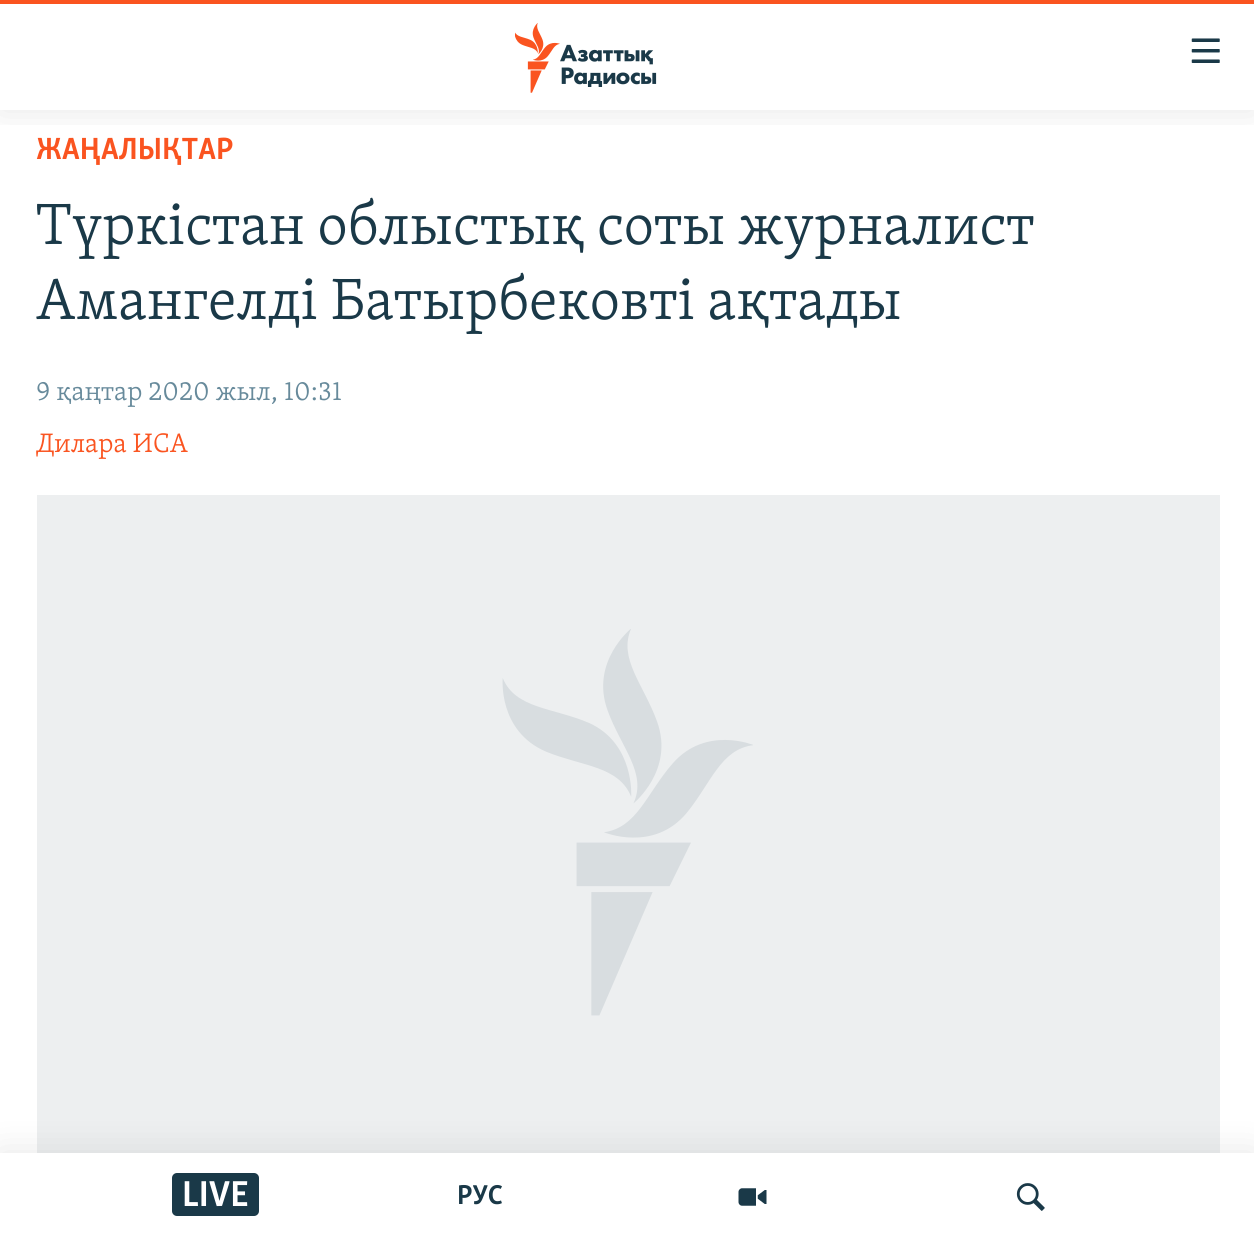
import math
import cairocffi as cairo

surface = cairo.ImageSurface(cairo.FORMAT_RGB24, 1254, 1240)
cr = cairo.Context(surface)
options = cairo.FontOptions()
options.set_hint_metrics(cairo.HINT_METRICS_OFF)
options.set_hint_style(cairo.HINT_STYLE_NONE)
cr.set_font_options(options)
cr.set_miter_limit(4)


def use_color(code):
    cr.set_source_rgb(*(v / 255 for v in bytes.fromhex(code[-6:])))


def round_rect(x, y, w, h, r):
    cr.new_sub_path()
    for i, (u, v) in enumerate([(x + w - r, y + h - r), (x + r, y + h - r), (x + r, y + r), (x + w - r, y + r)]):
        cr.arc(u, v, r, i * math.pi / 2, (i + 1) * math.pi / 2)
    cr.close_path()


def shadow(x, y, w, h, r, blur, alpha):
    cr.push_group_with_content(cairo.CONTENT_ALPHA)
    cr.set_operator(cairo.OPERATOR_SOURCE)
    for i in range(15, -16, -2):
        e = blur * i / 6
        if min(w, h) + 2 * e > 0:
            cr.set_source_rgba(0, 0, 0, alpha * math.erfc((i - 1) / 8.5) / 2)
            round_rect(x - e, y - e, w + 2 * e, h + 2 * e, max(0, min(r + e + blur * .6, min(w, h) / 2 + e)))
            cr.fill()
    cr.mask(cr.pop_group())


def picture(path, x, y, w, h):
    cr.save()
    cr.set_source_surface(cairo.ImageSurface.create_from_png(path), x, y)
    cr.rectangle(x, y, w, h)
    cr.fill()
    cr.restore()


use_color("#ffffff")
cr.paint()
cr.select_font_face("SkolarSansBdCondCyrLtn", cairo.FONT_SLANT_NORMAL, cairo.FONT_WEIGHT_BOLD)
cr.set_font_size(31.5)
use_color("#fa5420")
cr.move_to(36, 159)
cr.show_text("ЖАҢАЛЫҚТАР")
cr.select_font_face("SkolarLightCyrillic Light")
cr.set_font_size(59.8)
use_color("#1a3948")
cr.move_to(36, 244)
cr.show_text("Түркістан облыстық соты журналист")
cr.move_to(36, 319)
cr.show_text("Амангелді Батырбековті ақтады")
cr.set_font_size(27.5)
use_color("#678a9b")
cr.move_to(36, 400)
cr.show_text("9 қаңтар 2020 жыл, 10:31")
use_color("#fa5420")
cr.move_to(36, 452)
cr.show_text("Дилара ИСА")
use_color("#edeff0")
cr.rectangle(37, 495, 1183, 658)
cr.fill()
picture("img1.png", 502, 629, 251, 387)
cr.save()
cr.rectangle(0, 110, 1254, 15)
cr.clip()
use_color("#000000")
shadow(0, 0, 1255, 110, 0, 17.5, 0.1)
cr.restore()
use_color("#fa5420")
cr.rectangle(0, 0, 1254, 4)
cr.fill()
picture("img2.png", 515, 23, 142, 70)
picture("img3.png", 1191, 38, 29, 25)
use_color("#000000")
shadow(0, 1153, 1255, 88, 0, 17.5, 0.1)
use_color("#ffffff")
cr.rectangle(0, 1153, 1254, 87)
cr.fill()
use_color("#1a3948")
round_rect(172, 1173, 87, 43, 5)
cr.fill()
cr.select_font_face("SkolarSansBdCondCyrLtn", cairo.FONT_SLANT_NORMAL, cairo.FONT_WEIGHT_BOLD)
cr.set_font_size(37)
use_color("#ffffff")
cr.move_to(182, 1206)
cr.show_text("LIVE")
cr.set_font_size(28)
use_color("#1a3948")
cr.move_to(457, 1204)
cr.show_text("РУС")
picture("img4.png", 738, 1188, 29, 18)
picture("img5.png", 1016, 1183, 29, 28)
surface.write_to_png("result.png")
